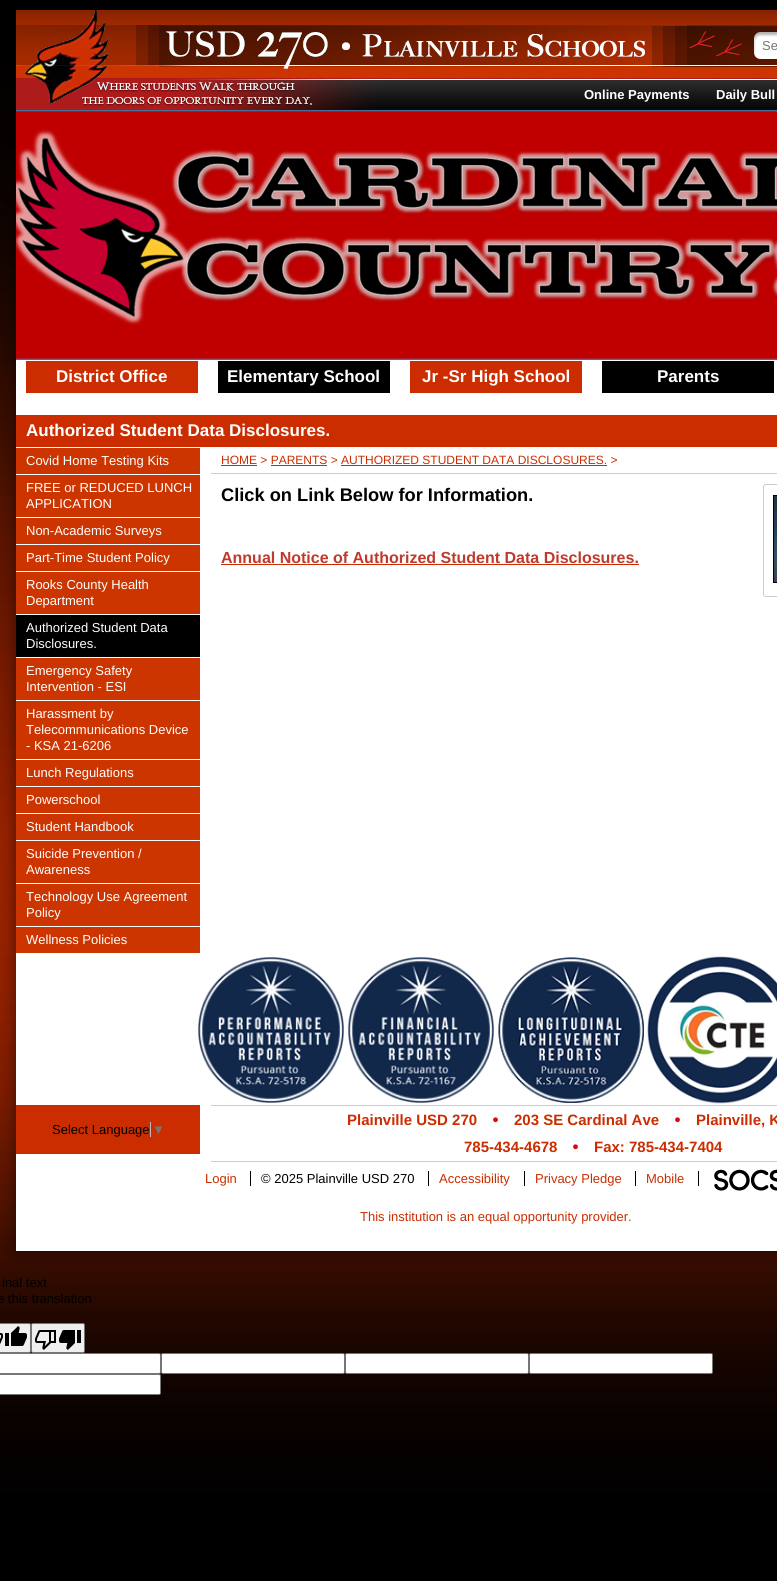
import math
import cairocffi as cairo

surface = cairo.ImageSurface(cairo.FORMAT_RGB24, 777, 1581)
cr = cairo.Context(surface)
options = cairo.FontOptions()
options.set_hint_metrics(cairo.HINT_METRICS_OFF)
options.set_hint_style(cairo.HINT_STYLE_NONE)
cr.set_font_options(options)
cr.set_miter_limit(4)


def use_color(code):
    cr.set_source_rgb(*(v / 255 for v in bytes.fromhex(code[-6:])))


def round_rect(x, y, w, h, r):
    cr.new_sub_path()
    for i, (u, v) in enumerate([(x + w - r, y + h - r), (x + r, y + h - r), (x + r, y + r), (x + w - r, y + r)]):
        cr.arc(u, v, r, i * math.pi / 2, (i + 1) * math.pi / 2)
    cr.close_path()


def shadow(x, y, w, h, r, blur, alpha):
    cr.push_group_with_content(cairo.CONTENT_ALPHA)
    cr.set_operator(cairo.OPERATOR_SOURCE)
    for i in range(15, -16, -2):
        e = blur * i / 6
        if min(w, h) + 2 * e > 0:
            cr.set_source_rgba(0, 0, 0, alpha * math.erfc((i - 1) / 8.5) / 2)
            round_rect(x - e, y - e, w + 2 * e, h + 2 * e, max(0, min(r + e + blur * .6, min(w, h) / 2 + e)))
            cr.fill()
    cr.mask(cr.pop_group())


def picture(path, x, y, w, h):
    cr.save()
    cr.set_source_surface(cairo.ImageSurface.create_from_png(path), x, y)
    cr.rectangle(x, y, w, h)
    cr.fill()
    cr.restore()


use_color("#ffffff")
cr.paint()
picture("img1.png", 0, 0, 777, 1581)
use_color("#000000")
shadow(16, 10, 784, 1241, 0, 7.5, 0.5)
picture("img2.png", 16, 10, 761, 100)
picture("img3.png", 754, 32, 23, 27)
cr.select_font_face("Liberation Sans")
cr.set_font_size(13)
use_color("#767676")
cr.move_to(762, 50)
cr.show_text("Se")
cr.select_font_face("Liberation Sans", cairo.FONT_SLANT_NORMAL, cairo.FONT_WEIGHT_BOLD)
use_color("#ffffff")
cr.move_to(584, 99)
cr.show_text("Online Payments")
cr.move_to(716, 99)
cr.show_text("Daily Bull")
picture("img4.png", 16, 110, 761, 250)
cr.rectangle(16, 360, 761, 891)
cr.fill()
picture("img5.png", 198, 362, 404, 29)
use_color("#cb2d00")
cr.rectangle(26, 361, 172, 32)
cr.fill()
cr.set_font_size(17)
use_color("#ffffff")
cr.move_to(56, 382)
cr.show_text("District Office")
use_color("#000000")
cr.rectangle(218, 361, 172, 32)
cr.fill()
use_color("#ffffff")
cr.move_to(227, 382)
cr.show_text("Elementary School")
use_color("#cb2d00")
cr.rectangle(410, 361, 172, 32)
cr.fill()
use_color("#ffffff")
cr.move_to(422, 382)
cr.show_text("Jr -Sr High School")
use_color("#000000")
cr.rectangle(602, 361, 172, 32)
cr.fill()
use_color("#ffffff")
cr.move_to(657, 382)
cr.show_text("Parents")
use_color("#cc3500")
cr.rectangle(16, 448, 184, 505)
cr.fill()
use_color("#cb2d00")
cr.rectangle(16, 415, 761, 32)
cr.fill()
use_color("#ffffff")
cr.move_to(26, 436)
cr.show_text("Authorized Student Data Disclosures.")
cr.rectangle(16, 474, 184, 1)
cr.fill()
cr.select_font_face("Liberation Sans")
cr.set_font_size(13)
cr.move_to(26, 465)
cr.show_text("Covid Home Testing Kits")
cr.rectangle(16, 517, 184, 1)
cr.fill()
cr.move_to(26, 492)
cr.show_text("FREE or REDUCED LUNCH")
cr.move_to(26, 508)
cr.show_text("APPLICATION")
cr.rectangle(16, 544, 184, 1)
cr.fill()
cr.move_to(26, 535)
cr.show_text("Non-Academic Surveys")
cr.rectangle(16, 571, 184, 1)
cr.fill()
cr.move_to(26, 562)
cr.show_text("Part-Time Student Policy")
cr.rectangle(16, 614, 184, 1)
cr.fill()
cr.move_to(26, 589)
cr.show_text("Rooks County Health")
cr.move_to(26, 605)
cr.show_text("Department")
cr.rectangle(16, 657, 184, 1)
cr.fill()
use_color("#000000")
cr.rectangle(16, 615, 184, 42)
cr.fill()
use_color("#ffffff")
cr.move_to(26, 632)
cr.show_text("Authorized Student Data")
cr.move_to(26, 648)
cr.show_text("Disclosures.")
cr.rectangle(16, 700, 184, 1)
cr.fill()
cr.move_to(26, 675)
cr.show_text("Emergency Safety")
cr.move_to(26, 691)
cr.show_text("Intervention - ESI")
cr.rectangle(16, 759, 184, 1)
cr.fill()
cr.move_to(26, 718)
cr.show_text("Harassment by")
cr.move_to(26, 734)
cr.show_text("Telecommunications Device")
cr.move_to(26, 750)
cr.show_text("- KSA 21-6206")
cr.rectangle(16, 786, 184, 1)
cr.fill()
cr.move_to(26, 777)
cr.show_text("Lunch Regulations")
cr.rectangle(16, 813, 184, 1)
cr.fill()
cr.move_to(26, 804)
cr.show_text("Powerschool")
cr.rectangle(16, 840, 184, 1)
cr.fill()
cr.move_to(26, 831)
cr.show_text("Student Handbook")
cr.rectangle(16, 883, 184, 1)
cr.fill()
cr.move_to(26, 858)
cr.show_text("Suicide Prevention /")
cr.move_to(26, 874)
cr.show_text("Awareness")
cr.rectangle(16, 926, 184, 1)
cr.fill()
cr.move_to(26, 901)
cr.show_text("Technology Use Agreement")
cr.move_to(26, 917)
cr.show_text("Policy")
cr.move_to(26, 944)
cr.show_text("Wellness Policies")
use_color("#cccccc")
cr.rectangle(211, 473, 566, 1)
cr.fill()
cr.set_font_size(12)
use_color("#cb2d00")
cr.move_to(221, 464)
cr.show_text("HOME > PARENTS > AUTHORIZED STUDENT DATA DISCLOSURES. >")
cr.rectangle(221, 465, 36, 1)
cr.fill()
cr.rectangle(271, 465, 56, 1)
cr.fill()
cr.rectangle(341, 465, 266, 1)
cr.fill()
cr.select_font_face("Liberation Sans", cairo.FONT_SLANT_NORMAL, cairo.FONT_WEIGHT_BOLD)
cr.set_font_size(18.25)
use_color("#000000")
cr.move_to(221, 501)
cr.show_text("Click on Link Below for Information.")
round_rect(763.5, 484.5, 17, 112, 2.5)
use_color("#cccccc")
cr.set_line_width(1)
cr.stroke()
cr.rectangle(773.5, 495.5, 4, 87)
use_color("#000000")
cr.stroke()
picture("img6.png", 774, 496, 3, 86)
cr.set_font_size(16)
use_color("#c0392b")
cr.move_to(221, 563)
cr.show_text("Annual Notice of Authorized Student Data Disclosures.")
use_color("#cb2d00")
cr.rectangle(221, 564, 418, 1)
cr.fill()
picture("img7.png", 198, 957, 146, 146)
picture("img8.png", 348, 957, 146, 146)
picture("img9.png", 498, 957, 146, 146)
picture("img10.png", 647, 956, 130, 148)
cr.rectangle(16, 1105, 184, 49)
cr.fill()
cr.select_font_face("Liberation Sans")
cr.set_font_size(13)
use_color("#000000")
cr.move_to(52, 1134)
cr.show_text("Select Language")
use_color("#bbbbbb")
cr.rectangle(150, 1122, 1, 15)
cr.fill()
use_color("#767676")
cr.move_to(152, 1134)
cr.show_text("▼")
use_color("#cccccc")
cr.rectangle(211, 1105, 566, 1)
cr.fill()
cr.rectangle(211, 1161, 566, 1)
cr.fill()
cr.select_font_face("Liberation Sans", cairo.FONT_SLANT_NORMAL, cairo.FONT_WEIGHT_BOLD)
cr.set_font_size(15)
use_color("#cb2d00")
cr.move_to(347, 1125)
cr.show_text("Plainville USD 270")
picture("img11.png", 493, 1117, 5, 6)
cr.move_to(514, 1125)
cr.show_text("203 SE Cardinal Ave")
picture("img11.png", 675, 1117, 5, 6)
cr.move_to(696, 1125)
cr.show_text("Plainville, K")
cr.move_to(464, 1152)
cr.show_text("785-434-4678")
picture("img11.png", 573, 1144, 5, 6)
cr.move_to(594, 1152)
cr.show_text("Fax: 785-434-7404")
cr.select_font_face("Liberation Sans")
cr.set_font_size(13)
cr.move_to(205, 1183)
cr.show_text("Login")
use_color("#000000")
cr.move_to(261, 1183)
cr.show_text("© 2025 Plainville USD 270")
cr.rectangle(250, 1171, 1, 15)
cr.fill()
use_color("#cb2d00")
cr.move_to(439, 1183)
cr.show_text("Accessibility")
use_color("#000000")
cr.rectangle(428, 1171, 1, 15)
cr.fill()
use_color("#cb2d00")
cr.move_to(535, 1183)
cr.show_text("Privacy Pledge")
use_color("#000000")
cr.rectangle(524, 1171, 1, 15)
cr.fill()
use_color("#cb2d00")
cr.move_to(646, 1183)
cr.show_text("Mobile")
use_color("#000000")
cr.rectangle(635, 1171, 1, 15)
cr.fill()
cr.rectangle(698, 1171, 1, 15)
cr.fill()
picture("img12.png", 714, 1169, 63, 22)
use_color("#cb2d00")
cr.move_to(360, 1221)
cr.show_text("This institution is an equal opportunity provider.")
use_color("#000000")
cr.move_to(2, 1287)
cr.show_text("inal text")
cr.move_to(-3, 1303)
cr.show_text("e this translation")
use_color("#efefef")
round_rect(-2.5, 1323.5, 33, 29, 1.5)
cr.fill_preserve()
use_color("#767676")
cr.stroke()
picture("img13.png", 0, 1333, 3, 12)
picture("img14.png", 5, 1326, 22, 20)
use_color("#efefef")
round_rect(31.5, 1323.5, 53, 29, 1.5)
cr.fill_preserve()
use_color("#767676")
cr.stroke()
picture("img15.png", 35, 1330, 21, 20)
picture("img16.png", 59, 1330, 22, 20)
use_color("#ffffff")
round_rect(-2.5, 1353.5, 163, 20, 1.5)
cr.fill_preserve()
use_color("#767676")
cr.stroke()
use_color("#ffffff")
round_rect(161.5, 1353.5, 183, 20, 1.5)
cr.fill_preserve()
use_color("#767676")
cr.stroke()
use_color("#ffffff")
round_rect(345.5, 1353.5, 183, 20, 1.5)
cr.fill_preserve()
use_color("#767676")
cr.stroke()
use_color("#ffffff")
round_rect(529.5, 1353.5, 183, 20, 1.5)
cr.fill_preserve()
use_color("#767676")
cr.stroke()
use_color("#ffffff")
round_rect(-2.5, 1374.5, 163, 20, 1.5)
cr.fill_preserve()
use_color("#767676")
cr.stroke()
surface.write_to_png("result.png")
